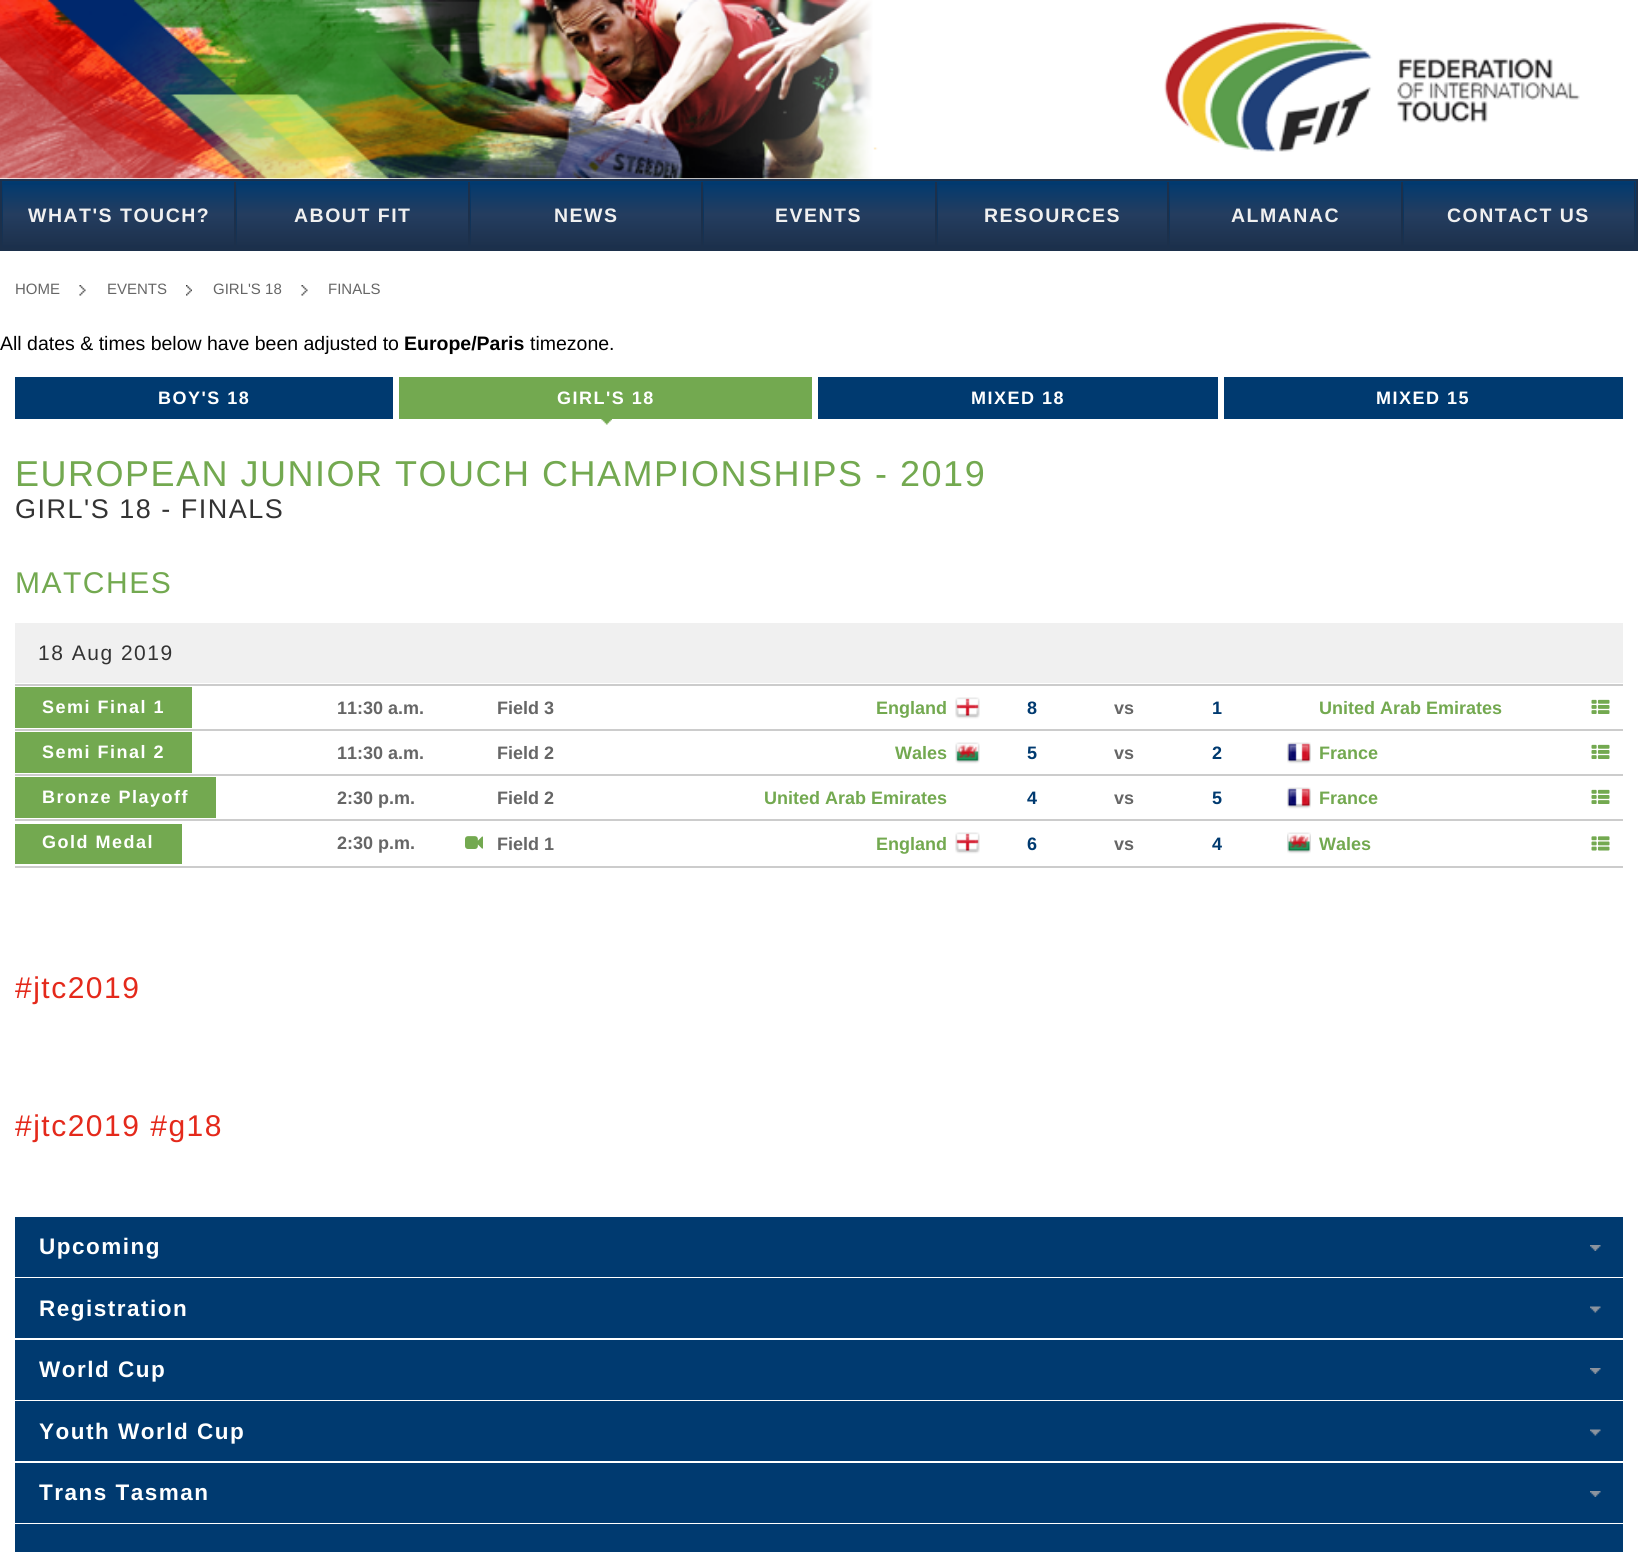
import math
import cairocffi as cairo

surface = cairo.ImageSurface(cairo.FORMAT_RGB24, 1638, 1552)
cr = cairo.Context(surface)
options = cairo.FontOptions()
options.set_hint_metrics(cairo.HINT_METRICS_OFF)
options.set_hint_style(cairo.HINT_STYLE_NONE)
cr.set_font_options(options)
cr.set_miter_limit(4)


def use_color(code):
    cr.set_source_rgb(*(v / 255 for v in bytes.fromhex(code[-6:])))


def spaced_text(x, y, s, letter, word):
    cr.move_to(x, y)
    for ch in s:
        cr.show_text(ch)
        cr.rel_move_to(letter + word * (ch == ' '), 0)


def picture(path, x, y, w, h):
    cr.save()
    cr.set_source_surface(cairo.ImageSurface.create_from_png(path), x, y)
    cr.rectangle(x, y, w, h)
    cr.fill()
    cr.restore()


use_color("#ffffff")
cr.paint()
picture("img1.png", 0, 0, 1580, 179)
gradient = cairo.LinearGradient(819, 180, 819, 249)
gradient.add_color_stop_rgba(0, 0, 0.227, 0.439, 1)
gradient.add_color_stop_rgba(1, 0.11, 0.188, 0.294, 1)
cr.set_source(gradient)
cr.rectangle(2, 181, 1634, 68)
cr.fill()
cr.rectangle(1, 180, 1636, 70)
use_color("#1c304b")
cr.stroke()
gradient = cairo.LinearGradient(119, 181, 119, 248)
gradient.add_color_stop_rgba(0, 0, 0.227, 0.439, 1)
gradient.add_color_stop_rgba(0.49, 0.141, 0.239, 0.373, 1)
gradient.add_color_stop_rgba(0.51, 0.141, 0.239, 0.373, 1)
gradient.add_color_stop_rgba(1, 0.11, 0.188, 0.294, 1)
cr.set_source(gradient)
cr.rectangle(3, 185, 231, 60)
cr.fill()
use_color("#1c304b")
cr.rectangle(234, 182, 2, 66)
cr.fill()
cr.select_font_face("Liberation Sans", cairo.FONT_SLANT_NORMAL, cairo.FONT_WEIGHT_BOLD)
cr.set_font_size(19.5)
use_color("#f0f0f0")
spaced_text(28, 222, "WHAT'S TOUCH?", 1.5, 0)
gradient = cairo.LinearGradient(353, 181, 353, 248)
gradient.add_color_stop_rgba(0, 0, 0.227, 0.439, 1)
gradient.add_color_stop_rgba(0.49, 0.141, 0.239, 0.373, 1)
gradient.add_color_stop_rgba(0.51, 0.141, 0.239, 0.373, 1)
gradient.add_color_stop_rgba(1, 0.11, 0.188, 0.294, 1)
cr.set_source(gradient)
cr.rectangle(237, 185, 231, 60)
cr.fill()
use_color("#1c304b")
cr.rectangle(468, 182, 2, 66)
cr.fill()
use_color("#f0f0f0")
spaced_text(294, 222, "ABOUT FIT", 1.5, 0)
gradient = cairo.LinearGradient(586, 181, 586, 248)
gradient.add_color_stop_rgba(0, 0, 0.227, 0.439, 1)
gradient.add_color_stop_rgba(0.49, 0.141, 0.239, 0.373, 1)
gradient.add_color_stop_rgba(0.51, 0.141, 0.239, 0.373, 1)
gradient.add_color_stop_rgba(1, 0.11, 0.188, 0.294, 1)
cr.set_source(gradient)
cr.rectangle(471, 185, 230, 60)
cr.fill()
use_color("#1c304b")
cr.rectangle(701, 182, 2, 66)
cr.fill()
use_color("#f0f0f0")
spaced_text(554, 222, "NEWS", 1.5, 0)
gradient = cairo.LinearGradient(819, 181, 819, 248)
gradient.add_color_stop_rgba(0, 0, 0.227, 0.439, 1)
gradient.add_color_stop_rgba(0.49, 0.141, 0.239, 0.373, 1)
gradient.add_color_stop_rgba(0.51, 0.141, 0.239, 0.373, 1)
gradient.add_color_stop_rgba(1, 0.11, 0.188, 0.294, 1)
cr.set_source(gradient)
cr.rectangle(704, 185, 231, 60)
cr.fill()
use_color("#1c304b")
cr.rectangle(935, 182, 2, 66)
cr.fill()
use_color("#f0f0f0")
spaced_text(775, 222, "EVENTS", 1.5, 0)
gradient = cairo.LinearGradient(1052, 181, 1052, 248)
gradient.add_color_stop_rgba(0, 0, 0.227, 0.439, 1)
gradient.add_color_stop_rgba(0.49, 0.141, 0.239, 0.373, 1)
gradient.add_color_stop_rgba(0.51, 0.141, 0.239, 0.373, 1)
gradient.add_color_stop_rgba(1, 0.11, 0.188, 0.294, 1)
cr.set_source(gradient)
cr.rectangle(938, 185, 229, 60)
cr.fill()
use_color("#1c304b")
cr.rectangle(1167, 182, 2, 66)
cr.fill()
use_color("#f0f0f0")
spaced_text(984, 222, "RESOURCES", 1.5, 0)
gradient = cairo.LinearGradient(1286, 181, 1286, 248)
gradient.add_color_stop_rgba(0, 0, 0.227, 0.439, 1)
gradient.add_color_stop_rgba(0.49, 0.141, 0.239, 0.373, 1)
gradient.add_color_stop_rgba(0.51, 0.141, 0.239, 0.373, 1)
gradient.add_color_stop_rgba(1, 0.11, 0.188, 0.294, 1)
cr.set_source(gradient)
cr.rectangle(1170, 185, 231, 60)
cr.fill()
use_color("#1c304b")
cr.rectangle(1401, 182, 2, 66)
cr.fill()
use_color("#f0f0f0")
spaced_text(1231, 222, "ALMANAC", 1.5, 0)
gradient = cairo.LinearGradient(1519, 181, 1519, 248)
gradient.add_color_stop_rgba(0, 0, 0.227, 0.439, 1)
gradient.add_color_stop_rgba(0.49, 0.141, 0.239, 0.373, 1)
gradient.add_color_stop_rgba(0.51, 0.141, 0.239, 0.373, 1)
gradient.add_color_stop_rgba(1, 0.11, 0.188, 0.294, 1)
cr.set_source(gradient)
cr.rectangle(1404, 185, 230, 60)
cr.fill()
use_color("#1c304b")
cr.rectangle(1634, 182, 1, 66)
cr.fill()
use_color("#f0f0f0")
spaced_text(1447, 222, "CONTACT US", 1.5, 0)
cr.select_font_face("Liberation Sans")
cr.set_font_size(15)
use_color("#666666")
cr.move_to(15, 294)
cr.show_text("HOME")
picture("img2.png", 79, 285, 7, 11)
cr.move_to(107, 294)
cr.show_text("EVENTS")
picture("img3.png", 186, 285, 6, 11)
cr.move_to(213, 294)
cr.show_text("GIRL'S 18")
picture("img2.png", 301, 285, 7, 11)
cr.move_to(328, 294)
cr.show_text("FINALS")
cr.set_font_size(19.5)
use_color("#000000")
cr.move_to(0, 350)
cr.show_text("All dates & times below have been adjusted to")
cr.select_font_face("Liberation Sans", cairo.FONT_SLANT_NORMAL, cairo.FONT_WEIGHT_BOLD)
cr.move_to(404, 350)
cr.show_text("Europe/Paris")
cr.select_font_face("Liberation Sans")
cr.move_to(530, 350)
cr.show_text("timezone.")
use_color("#003a70")
cr.rectangle(15, 377, 378, 42)
cr.fill()
cr.select_font_face("Liberation Sans", cairo.FONT_SLANT_NORMAL, cairo.FONT_WEIGHT_BOLD)
cr.set_font_size(18)
use_color("#ffffff")
spaced_text(158, 404, "BOY'S 18", 1.5, 0)
use_color("#73a950")
cr.rectangle(399, 377, 413, 42)
cr.fill()
use_color("#ffffff")
spaced_text(557, 404, "GIRL'S 18", 1.5, 0)
picture("img4.png", 601, 419, 11, 6)
use_color("#003a70")
cr.rectangle(818, 377, 400, 42)
cr.fill()
use_color("#ffffff")
spaced_text(971, 404, "MIXED 18", 1.5, 0)
use_color("#003a70")
cr.rectangle(1224, 377, 399, 42)
cr.fill()
use_color("#ffffff")
spaced_text(1376, 404, "MIXED 15", 1.5, 0)
cr.select_font_face("Liberation Sans")
cr.set_font_size(36)
use_color("#73a950")
spaced_text(15, 486, "EUROPEAN JUNIOR TOUCH CHAMPIONSHIPS - 2019", 1.5, 0)
cr.set_font_size(27)
use_color("#333333")
spaced_text(15, 518, "GIRL'S 18 - FINALS", 1.5, 0)
cr.set_font_size(30)
use_color("#73a950")
spaced_text(15, 593, "MATCHES", 1.5, 0)
use_color("#f0f0f0")
cr.rectangle(15, 623, 1608, 60)
cr.fill()
cr.set_font_size(21)
use_color("#333333")
spaced_text(38, 660, "18 Aug 2019", 1.5, 0)
use_color("#cccccc")
cr.rectangle(15, 866, 1608, 2)
cr.fill()
cr.rectangle(15, 684, 1608, 2)
cr.fill()
picture("img5.png", 1591, 699, 19, 15)
use_color("#73a950")
cr.rectangle(15, 687, 177, 41)
cr.fill()
cr.select_font_face("Liberation Sans", cairo.FONT_SLANT_NORMAL, cairo.FONT_WEIGHT_BOLD)
cr.set_font_size(18)
use_color("#ffffff")
spaced_text(42, 713, "Semi Final 1", 1.5, 0)
use_color("#666666")
cr.move_to(337, 714)
cr.show_text("11:30 a.m.")
cr.move_to(497, 714)
cr.show_text("Field 3")
picture("img6.png", 955, 697, 25, 22)
use_color("#73a950")
cr.move_to(876, 714)
cr.show_text("England")
use_color("#003a70")
cr.move_to(1027, 714)
cr.show_text("8")
use_color("#666666")
cr.move_to(1114, 714)
cr.show_text("vs")
use_color("#003a70")
cr.move_to(1212, 714)
cr.show_text("1")
use_color("#73a950")
cr.move_to(1319, 714)
cr.show_text("United Arab Emirates")
use_color("#cccccc")
cr.rectangle(15, 729, 1608, 2)
cr.fill()
picture("img5.png", 1591, 744, 19, 15)
use_color("#73a950")
cr.rectangle(15, 732, 177, 41)
cr.fill()
use_color("#ffffff")
spaced_text(42, 758, "Semi Final 2", 1.5, 0)
use_color("#666666")
cr.move_to(337, 759)
cr.show_text("11:30 a.m.")
cr.move_to(497, 759)
cr.show_text("Field 2")
picture("img7.png", 955, 742, 25, 22)
use_color("#73a950")
cr.move_to(895, 759)
cr.show_text("Wales")
use_color("#003a70")
cr.move_to(1027, 759)
cr.show_text("5")
use_color("#666666")
cr.move_to(1114, 759)
cr.show_text("vs")
use_color("#003a70")
cr.move_to(1212, 759)
cr.show_text("2")
picture("img8.png", 1287, 742, 24, 22)
use_color("#73a950")
cr.move_to(1319, 759)
cr.show_text("France")
use_color("#cccccc")
cr.rectangle(15, 774, 1608, 2)
cr.fill()
picture("img5.png", 1591, 789, 19, 15)
use_color("#73a950")
cr.rectangle(15, 777, 201, 41)
cr.fill()
use_color("#ffffff")
spaced_text(42, 803, "Bronze Playoff", 1.5, 0)
use_color("#666666")
cr.move_to(337, 804)
cr.show_text("2:30 p.m.")
cr.move_to(497, 804)
cr.show_text("Field 2")
use_color("#73a950")
cr.move_to(764, 804)
cr.show_text("United Arab Emirates")
use_color("#003a70")
cr.move_to(1027, 804)
cr.show_text("4")
use_color("#666666")
cr.move_to(1114, 804)
cr.show_text("vs")
use_color("#003a70")
cr.move_to(1212, 804)
cr.show_text("5")
picture("img8.png", 1287, 787, 24, 22)
use_color("#73a950")
cr.move_to(1319, 804)
cr.show_text("France")
use_color("#cccccc")
cr.rectangle(15, 819, 1608, 2)
cr.fill()
picture("img9.png", 1591, 836, 19, 15)
use_color("#73a950")
cr.rectangle(15, 824, 167, 40)
cr.fill()
use_color("#ffffff")
spaced_text(42, 848, "Gold Medal", 1.5, 0)
use_color("#666666")
cr.move_to(337, 849)
cr.show_text("2:30 p.m.")
picture("img10.png", 465, 836, 18, 13)
cr.move_to(497, 850)
cr.show_text("Field 1")
picture("img6.png", 955, 832, 25, 22)
use_color("#73a950")
cr.move_to(876, 850)
cr.show_text("England")
use_color("#003a70")
cr.move_to(1027, 850)
cr.show_text("6")
use_color("#666666")
cr.move_to(1114, 850)
cr.show_text("vs")
use_color("#003a70")
cr.move_to(1212, 850)
cr.show_text("4")
picture("img11.png", 1287, 832, 24, 22)
use_color("#73a950")
cr.move_to(1319, 850)
cr.show_text("Wales")
cr.select_font_face("Liberation Sans")
cr.set_font_size(30)
use_color("#e4291b")
spaced_text(15, 998, "#jtc2019", 1.5, 0)
spaced_text(15, 1136, "#jtc2019 #g18", 1.5, 0)
use_color("#003a70")
cr.rectangle(15, 1217, 1608, 60)
cr.fill()
cr.select_font_face("Liberation Sans", cairo.FONT_SLANT_NORMAL, cairo.FONT_WEIGHT_BOLD)
cr.set_font_size(22.5)
use_color("#ffffff")
spaced_text(39, 1254, "Upcoming", 1.5, 0)
picture("img12.png", 1590, 1245, 11, 6)
use_color("#003a70")
cr.rectangle(15, 1278, 1608, 60)
cr.fill()
use_color("#ffffff")
spaced_text(39, 1316, "Registration", 1.5, 0)
picture("img13.png", 1590, 1306, 11, 7)
use_color("#003a70")
cr.rectangle(15, 1340, 1608, 60)
cr.fill()
use_color("#ffffff")
spaced_text(39, 1377, "World Cup", 1.5, 0)
picture("img12.png", 1590, 1368, 11, 6)
use_color("#003a70")
cr.rectangle(15, 1401, 1608, 60)
cr.fill()
use_color("#ffffff")
spaced_text(39, 1439, "Youth World Cup", 1.5, 0)
picture("img13.png", 1590, 1429, 11, 7)
use_color("#003a70")
cr.rectangle(15, 1463, 1608, 60)
cr.fill()
use_color("#ffffff")
spaced_text(39, 1500, "Trans Tasman", 1.5, 0)
picture("img12.png", 1590, 1491, 11, 6)
use_color("#003a70")
cr.rectangle(15, 1524, 1608, 28)
cr.fill()
surface.write_to_png("result.png")
